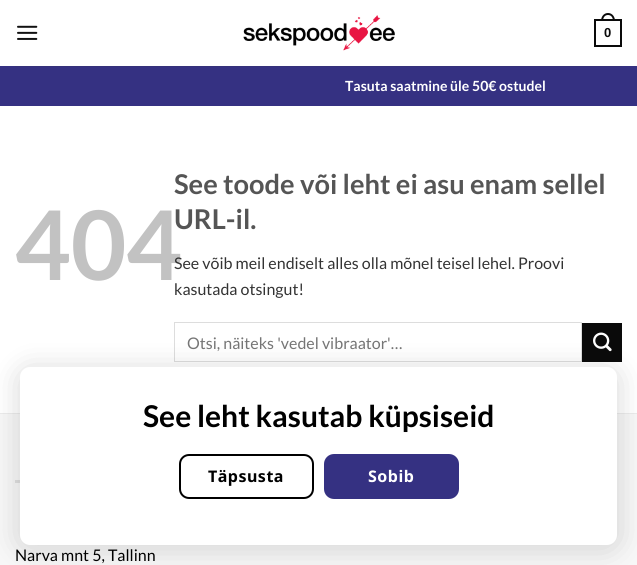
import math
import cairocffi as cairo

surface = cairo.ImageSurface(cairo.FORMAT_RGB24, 637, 565)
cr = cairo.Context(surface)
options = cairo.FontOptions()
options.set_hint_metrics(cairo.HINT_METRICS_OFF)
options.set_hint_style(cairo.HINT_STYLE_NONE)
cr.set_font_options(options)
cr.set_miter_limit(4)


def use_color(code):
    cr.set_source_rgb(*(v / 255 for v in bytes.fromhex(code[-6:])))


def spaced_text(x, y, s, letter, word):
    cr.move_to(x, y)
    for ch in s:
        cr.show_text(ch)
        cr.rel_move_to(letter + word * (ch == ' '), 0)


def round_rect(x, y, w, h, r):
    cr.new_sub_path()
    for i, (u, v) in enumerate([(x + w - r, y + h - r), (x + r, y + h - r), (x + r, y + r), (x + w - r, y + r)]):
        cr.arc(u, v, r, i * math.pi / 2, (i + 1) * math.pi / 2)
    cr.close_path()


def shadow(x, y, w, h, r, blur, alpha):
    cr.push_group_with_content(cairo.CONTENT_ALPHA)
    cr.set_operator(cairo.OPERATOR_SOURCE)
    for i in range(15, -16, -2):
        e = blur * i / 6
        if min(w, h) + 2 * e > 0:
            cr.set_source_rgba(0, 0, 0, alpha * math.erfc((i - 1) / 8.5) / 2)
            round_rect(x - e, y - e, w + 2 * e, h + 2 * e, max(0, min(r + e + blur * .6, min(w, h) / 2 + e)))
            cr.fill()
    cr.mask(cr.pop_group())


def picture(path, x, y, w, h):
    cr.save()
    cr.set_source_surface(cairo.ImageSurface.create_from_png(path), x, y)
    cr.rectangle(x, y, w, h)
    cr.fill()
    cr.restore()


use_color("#ffffff")
cr.paint()
picture("img1.png", 17, 25, 21, 15)
picture("img2.png", 243, 15, 152, 36)
cr.rectangle(595, 20, 26, 26)
use_color("#0a0a0a")
cr.stroke()
cr.set_fill_rule(cairo.FILL_RULE_EVEN_ODD)
cr.new_path()
cr.move_to(608, 13)
cr.curve_to(612.5, 13, 615, 17, 615, 21)
cr.line_to(601, 21)
cr.curve_to(601, 17, 603.5, 13, 608, 13)
cr.close_path()
cr.move_to(608, 15)
cr.curve_to(611.5, 15, 613, 18, 613, 21)
cr.line_to(603, 21)
cr.curve_to(603, 18, 604.5, 15, 608, 15)
cr.close_path()
cr.fill()
cr.select_font_face("Liberation Sans", cairo.FONT_SLANT_NORMAL, cairo.FONT_WEIGHT_BOLD)
cr.set_font_size(13)
cr.move_to(604, 37)
cr.show_text("0")
use_color("#353182")
cr.rectangle(0, 66, 637, 40)
cr.fill()
use_color("#35317a")
cr.rectangle(15, 66, 607, 1)
cr.fill()
cr.select_font_face("Lato", cairo.FONT_SLANT_NORMAL, cairo.FONT_WEIGHT_BOLD)
cr.set_font_size(14)
use_color("#ffffff")
cr.move_to(345, 91)
cr.show_text("Tasuta saatmine üle 50€ ostudel")
cr.set_font_size(96)
use_color("#c2c2c2")
cr.move_to(15, 280)
cr.show_text("404")
cr.set_font_size(27.25)
use_color("#555555")
cr.move_to(174, 194)
cr.show_text("See toode või leht ei asu enam sellel")
cr.move_to(174, 229)
cr.show_text("URL-il.")
cr.select_font_face("Lato")
cr.set_font_size(16)
use_color("#333333")
cr.move_to(174, 269)
cr.show_text("See võib meil endiselt alles olla mõnel teisel lehel. Proovi")
cr.move_to(174, 295)
cr.show_text("kasutada otsingut!")
cr.rectangle(174.5, 322.5, 407, 39)
use_color("#dddddd")
cr.set_line_width(1)
cr.stroke()
use_color("#757575")
cr.move_to(187, 349)
cr.show_text("Otsi, näiteks 'vedel vibraator'…")
use_color("#0a0a0a")
cr.rectangle(582, 323, 40, 39)
cr.fill()
picture("img3.png", 593, 332, 19, 20)
use_color("#f7f7f7")
cr.rectangle(0, 414, 637, 151)
cr.fill()
use_color("#ebebeb")
cr.rectangle(0, 413, 637, 1)
cr.fill()
use_color("#dedede")
cr.rectangle(15, 480, 5, 3)
cr.fill()
use_color("#000000")
cr.move_to(15, 561)
cr.show_text("Narva mnt 5, Tallinn")
use_color("#000000")
shadow(20, 370, 597, 178, 10, 15, 0.16)
use_color("#ffffff")
round_rect(20, 367, 597, 178, 10)
cr.fill()
cr.select_font_face("Lato", cairo.FONT_SLANT_NORMAL, cairo.FONT_WEIGHT_BOLD)
cr.set_font_size(30)
use_color("#000000")
cr.move_to(143, 427)
cr.show_text("See leht kasutab küpsiseid")
round_rect(180, 455, 133, 43, 9)
cr.set_line_width(2)
cr.stroke()
cr.select_font_face("Noto Sans", cairo.FONT_SLANT_NORMAL, cairo.FONT_WEIGHT_BOLD)
cr.set_font_size(16)
spaced_text(208, 482, "Täpsusta", 0.5, 0)
use_color("#353182")
round_rect(324, 454, 135, 45, 10)
cr.fill()
use_color("#ffffff")
spaced_text(368, 482, "Sobib", 0.5, 0)
surface.write_to_png("result.png")
